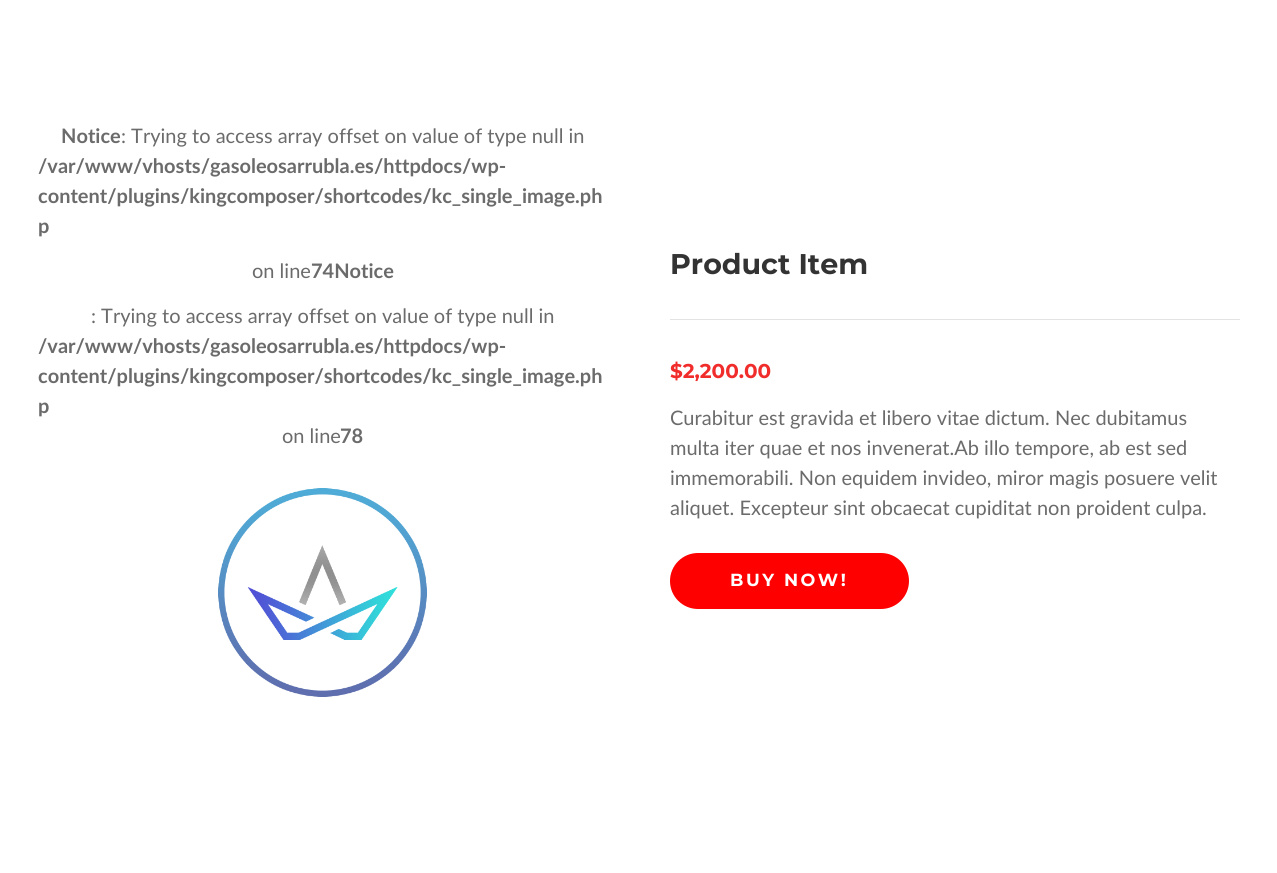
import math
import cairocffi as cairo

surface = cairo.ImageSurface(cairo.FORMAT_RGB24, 1277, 873)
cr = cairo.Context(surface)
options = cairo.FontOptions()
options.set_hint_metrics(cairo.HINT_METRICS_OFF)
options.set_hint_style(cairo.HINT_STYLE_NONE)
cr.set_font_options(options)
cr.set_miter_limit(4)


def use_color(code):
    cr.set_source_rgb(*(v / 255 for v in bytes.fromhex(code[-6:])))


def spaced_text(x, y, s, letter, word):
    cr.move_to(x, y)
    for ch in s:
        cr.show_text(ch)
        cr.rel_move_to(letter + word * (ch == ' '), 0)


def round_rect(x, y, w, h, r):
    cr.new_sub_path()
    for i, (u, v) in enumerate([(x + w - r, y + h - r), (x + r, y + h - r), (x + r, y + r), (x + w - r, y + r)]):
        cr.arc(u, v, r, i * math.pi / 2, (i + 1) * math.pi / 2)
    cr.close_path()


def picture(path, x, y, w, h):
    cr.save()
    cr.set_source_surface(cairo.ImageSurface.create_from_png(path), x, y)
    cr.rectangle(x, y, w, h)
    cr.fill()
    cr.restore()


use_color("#ffffff")
cr.paint()
cr.select_font_face("Lato", cairo.FONT_SLANT_NORMAL, cairo.FONT_WEIGHT_BOLD)
cr.set_font_size(20)
use_color("#6b6b6b")
cr.move_to(61, 143)
cr.show_text("Notice")
cr.select_font_face("Lato")
cr.move_to(121, 143)
cr.show_text(": Trying to access array offset on value of type null in")
cr.select_font_face("Lato", cairo.FONT_SLANT_NORMAL, cairo.FONT_WEIGHT_BOLD)
cr.move_to(38, 173)
cr.show_text("/var/www/vhosts/gasoleosarrubla.es/httpdocs/wp-")
cr.move_to(38, 203)
cr.show_text("content/plugins/kingcomposer/shortcodes/kc_single_image.ph")
cr.move_to(38, 233)
cr.show_text("p")
cr.select_font_face("Lato")
cr.move_to(252, 278)
cr.show_text("on line")
cr.select_font_face("Lato", cairo.FONT_SLANT_NORMAL, cairo.FONT_WEIGHT_BOLD)
cr.move_to(311, 278)
cr.show_text("74Notice")
cr.select_font_face("Lato")
cr.move_to(91, 323)
cr.show_text(": Trying to access array offset on value of type null in")
cr.select_font_face("Lato", cairo.FONT_SLANT_NORMAL, cairo.FONT_WEIGHT_BOLD)
cr.move_to(38, 353)
cr.show_text("/var/www/vhosts/gasoleosarrubla.es/httpdocs/wp-")
cr.move_to(38, 383)
cr.show_text("content/plugins/kingcomposer/shortcodes/kc_single_image.ph")
cr.move_to(38, 413)
cr.show_text("p")
cr.select_font_face("Lato")
cr.move_to(282, 443)
cr.show_text("on line")
cr.select_font_face("Lato", cairo.FONT_SLANT_NORMAL, cairo.FONT_WEIGHT_BOLD)
cr.move_to(340, 443)
cr.show_text("78")
picture("img1.png", 218, 488, 209, 209)
cr.select_font_face("Montserrat", cairo.FONT_SLANT_NORMAL, cairo.FONT_WEIGHT_BOLD)
cr.set_font_size(28.5)
use_color("#333333")
cr.move_to(670, 274)
cr.show_text("Product Item")
use_color("#e3e3e3")
cr.rectangle(670, 319, 570, 1)
cr.fill()
cr.set_font_size(20)
use_color("#f02d2b")
cr.move_to(670, 378)
cr.show_text("$2,200.00")
cr.select_font_face("Lato")
use_color("#6b6b6b")
cr.move_to(670, 425)
cr.show_text("Curabitur est gravida et libero vitae dictum. Nec dubitamus")
cr.move_to(670, 455)
cr.show_text("multa iter quae et nos invenerat.Ab illo tempore, ab est sed")
cr.move_to(670, 485)
cr.show_text("immemorabili. Non equidem invideo, miror magis posuere velit")
cr.move_to(670, 515)
cr.show_text("aliquet. Excepteur sint obcaecat cupiditat non proident culpa.")
use_color("#ff0000")
round_rect(670, 553, 239, 56, 28)
cr.fill()
cr.select_font_face("Montserrat", cairo.FONT_SLANT_NORMAL, cairo.FONT_WEIGHT_BOLD)
cr.set_font_size(17.5)
use_color("#ffffff")
spaced_text(730, 586, "BUY NOW!", 2.5, 0)
surface.write_to_png("result.png")
